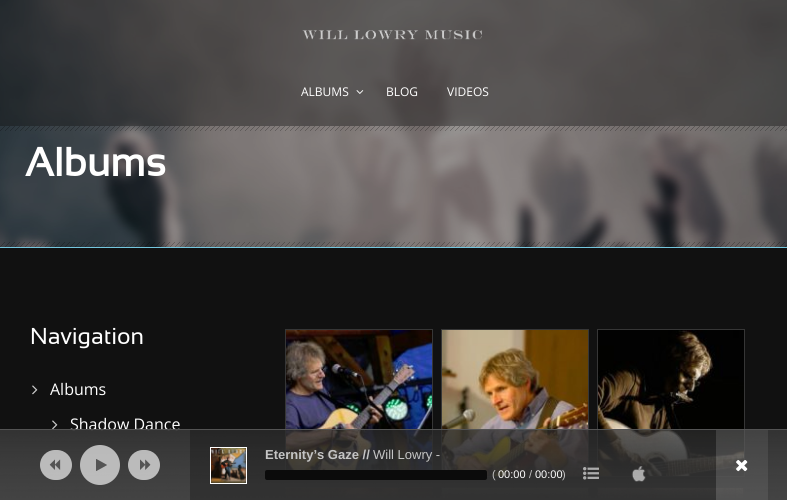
import math
import cairocffi as cairo

surface = cairo.ImageSurface(cairo.FORMAT_RGB24, 787, 500)
cr = cairo.Context(surface)
options = cairo.FontOptions()
options.set_hint_metrics(cairo.HINT_METRICS_OFF)
options.set_hint_style(cairo.HINT_STYLE_NONE)
cr.set_font_options(options)
cr.set_miter_limit(4)


def use_color(code):
    cr.set_source_rgb(*(v / 255 for v in bytes.fromhex(code[-6:])))


def round_rect(x, y, w, h, r):
    cr.new_sub_path()
    for i, (u, v) in enumerate([(x + w - r, y + h - r), (x + r, y + h - r), (x + r, y + r), (x + w - r, y + r)]):
        cr.arc(u, v, r, i * math.pi / 2, (i + 1) * math.pi / 2)
    cr.close_path()


def picture(path, x, y, w, h):
    cr.save()
    cr.set_source_surface(cairo.ImageSurface.create_from_png(path), x, y)
    cr.rectangle(x, y, w, h)
    cr.fill()
    cr.restore()


use_color("#111111")
cr.paint()
picture("img4.png", 0, 0, 787, 247)
cr.set_source_rgba(0.067, 0.067, 0.067, 0.4)
cr.rectangle(0, 0, 787, 126)
cr.fill()
picture("img1.png", 302, 30, 180, 10)
cr.select_font_face("Open Sans")
cr.set_font_size(12)
use_color("#ffffff")
cr.move_to(301, 96)
cr.show_text("ALBUMS")
picture("img2.png", 356, 90, 8, 4)
cr.move_to(386, 96)
cr.show_text("BLOG")
cr.move_to(447, 96)
cr.show_text("VIDEOS")
picture("img3.png", 0, 126, 787, 5)
cr.select_font_face("Sansation", cairo.FONT_SLANT_NORMAL, cairo.FONT_WEIGHT_BOLD)
cr.set_font_size(40)
cr.move_to(25, 176)
cr.show_text("Albums")
picture("img5.png", 0, 242, 787, 5)
use_color("#74c6de")
cr.rectangle(0, 247, 787, 1)
cr.fill()
cr.select_font_face("Sansation")
cr.set_font_size(23)
use_color("#ffffff")
cr.move_to(30, 344)
cr.show_text("Navigation")
picture("img6.png", 32, 385, 6, 10)
cr.select_font_face("Open Sans")
cr.set_font_size(16)
cr.move_to(50, 395)
cr.show_text("Albums")
picture("img7.png", 52, 420, 6, 9)
cr.move_to(70, 430)
cr.show_text("Shadow Dance")
picture("img6.png", 52, 459, 6, 10)
cr.rectangle(285.5, 329.5, 147, 147)
use_color("#363636")
cr.set_line_width(1)
cr.stroke()
picture("img8.png", 286, 330, 146, 140)
cr.rectangle(441.5, 329.5, 147, 147)
cr.stroke()
picture("img9.png", 442, 330, 146, 146)
cr.rectangle(597.5, 329.5, 147, 147)
cr.stroke()
picture("img10.png", 598, 330, 146, 146)
cr.rectangle(285.5, 487.5, 147, 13)
cr.stroke()
picture("img11.png", 286, 488, 146, 10)
cr.rectangle(441.5, 487.5, 147, 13)
cr.stroke()
picture("img12.png", 442, 488, 146, 10)
cr.rectangle(597.5, 487.5, 147, 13)
cr.stroke()
picture("img13.png", 598, 488, 146, 10)
picture("img14.png", 0, 430, 787, 70)
use_color("#535353")
cr.rectangle(0, 429, 787, 1)
cr.fill()
cr.set_source_rgba(0.855, 0.855, 0.855, 0.8)
round_rect(40, 450, 32, 30, 15)
cr.fill()
picture("img15.png", 49, 459, 12, 11)
cr.arc(100, 465, 20, 0, 2 * math.pi)
cr.fill()
picture("img16.png", 96, 459, 11, 12)
round_rect(128, 450, 32, 30, 15)
cr.fill()
picture("img17.png", 140, 459, 11, 11)
cr.set_source_rgba(0, 0, 0, 0.25)
cr.rectangle(190, 430, 378, 70)
cr.fill()
cr.rectangle(210.5, 447.5, 36, 36)
use_color("#ffffff")
cr.stroke()
picture("img18.png", 211, 448, 35, 35)
cr.select_font_face("Liberation Sans", cairo.FONT_SLANT_NORMAL, cairo.FONT_WEIGHT_BOLD)
cr.set_font_size(13)
use_color("#c5c5c5")
cr.move_to(265, 459)
cr.show_text("Eternity’s Gaze //")
cr.select_font_face("Liberation Sans")
cr.move_to(373, 459)
cr.show_text("Will Lowry -")
use_color("#0b0b0b")
round_rect(265, 470, 222, 10, 2)
cr.fill()
cr.set_font_size(11)
use_color("#c5c5c5")
cr.move_to(492, 478)
cr.show_text("(")
use_color("#ffffff")
cr.move_to(498, 478)
cr.show_text("00:00")
use_color("#c5c5c5")
cr.move_to(529, 478)
cr.show_text("/")
cr.move_to(562, 478)
cr.show_text(")")
use_color("#ffffff")
cr.move_to(535, 478)
cr.show_text("00:00")
cr.set_source_rgba(0, 0, 0, 0.25)
cr.rectangle(568, 430, 148, 70)
cr.fill()
picture("img19.png", 583, 467, 16, 13)
picture("img20.png", 631, 466, 15, 16)
cr.set_source_rgba(0.847, 0.847, 0.847, 0.1)
cr.rectangle(716, 430, 52, 70)
cr.fill()
picture("img21.png", 736, 460, 12, 12)
surface.write_to_png("result.png")
